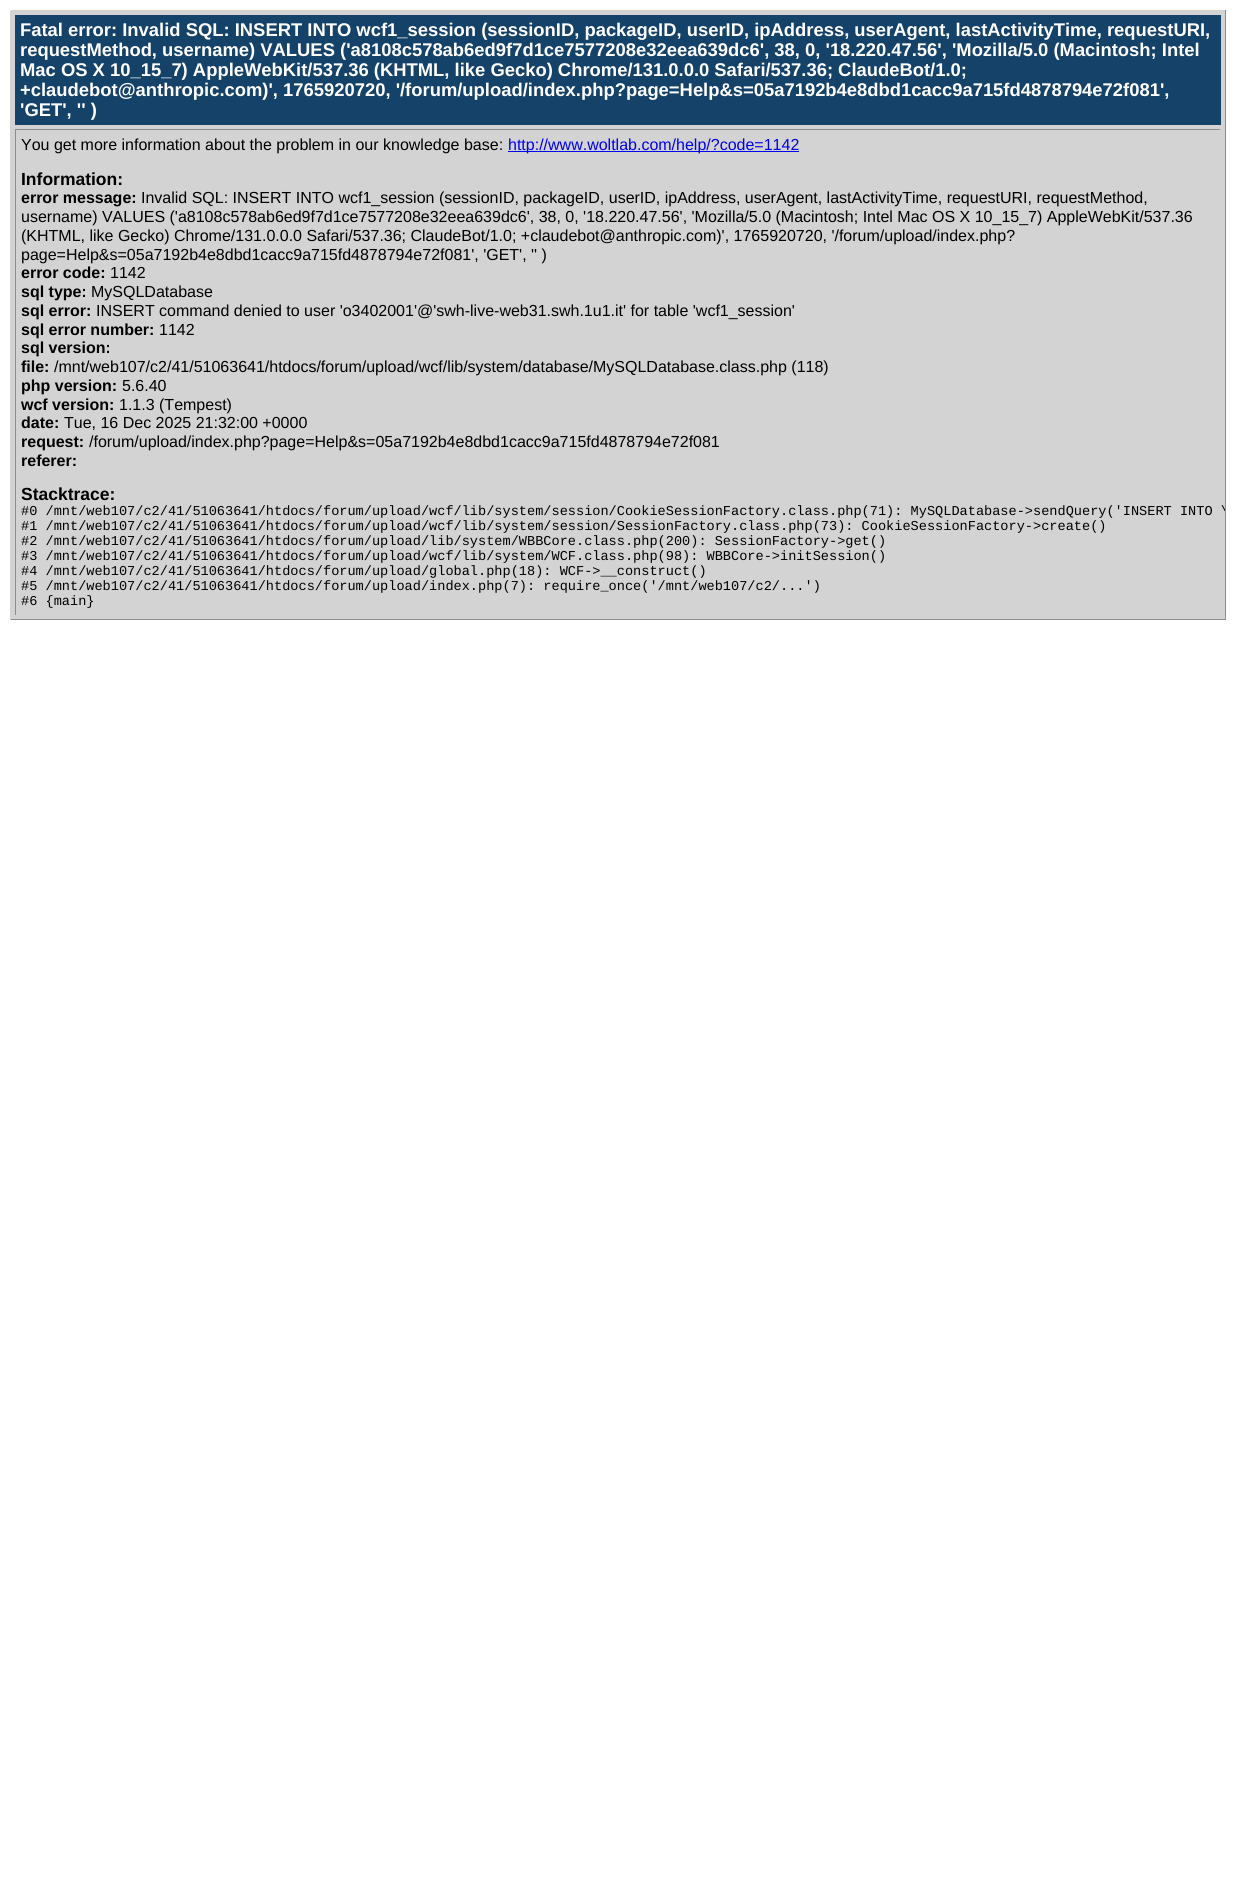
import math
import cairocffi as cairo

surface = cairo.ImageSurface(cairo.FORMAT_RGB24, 1236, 1902)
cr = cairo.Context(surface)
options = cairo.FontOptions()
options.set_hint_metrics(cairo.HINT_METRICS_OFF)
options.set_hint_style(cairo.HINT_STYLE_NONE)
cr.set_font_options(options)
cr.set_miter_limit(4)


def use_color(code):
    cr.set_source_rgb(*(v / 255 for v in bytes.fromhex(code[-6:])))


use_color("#ffffff")
cr.paint()
use_color("#d3d3d3")
cr.rectangle(11, 10, 1214, 609)
cr.fill()
use_color("#8d8d8d")
cr.rectangle(1225, 10, 1, 610)
cr.fill()
cr.rectangle(10, 619, 1216, 1)
cr.fill()
use_color("#d3d3d3")
cr.rectangle(10, 10, 1, 610)
cr.fill()
use_color("#154268")
cr.rectangle(15, 15, 1206, 110)
cr.fill()
cr.select_font_face("Liberation Sans", cairo.FONT_SLANT_NORMAL, cairo.FONT_WEIGHT_BOLD)
cr.set_font_size(18.4)
use_color("#ffffff")
cr.move_to(20, 36)
cr.show_text("Fatal error: Invalid SQL: INSERT INTO wcf1_session (sessionID, packageID, userID, ipAddress, userAgent, lastActivityTime, requestURI,")
cr.move_to(20, 56)
cr.show_text("requestMethod, username) VALUES ('a8108c578ab6ed9f7d1ce7577208e32eea639dc6', 38, 0, '18.220.47.56', 'Mozilla/5.0 (Macintosh; Intel")
cr.move_to(20, 76)
cr.show_text("Mac OS X 10_15_7) AppleWebKit/537.36 (KHTML, like Gecko) Chrome/131.0.0.0 Safari/537.36; ClaudeBot/1.0;")
cr.move_to(20, 96)
cr.show_text("+claudebot@anthropic.com)', 1765920720, '/forum/upload/index.php?page=Help&s=05a7192b4e8dbd1cacc9a715fd4878794e72f081',")
cr.move_to(20, 116)
cr.show_text("'GET', '' )")
use_color("#8d8d8d")
cr.rectangle(15, 129, 1206, 1)
cr.fill()
use_color("#d3d3d3")
cr.rectangle(1220, 129, 1, 1)
cr.fill()
use_color("#8d8d8d")
cr.rectangle(15, 129, 1, 486)
cr.fill()
cr.select_font_face("Liberation Sans")
cr.set_font_size(16)
use_color("#000000")
cr.move_to(21, 150)
cr.show_text("You get more information about the problem in our knowledge base:")
use_color("#0000ee")
cr.rectangle(508, 151, 291, 1)
cr.fill()
cr.move_to(508, 150)
cr.show_text("http://www.woltlab.com/help/?code=1142")
cr.select_font_face("Liberation Sans", cairo.FONT_SLANT_NORMAL, cairo.FONT_WEIGHT_BOLD)
cr.set_font_size(17.5)
use_color("#000000")
cr.move_to(21, 185)
cr.show_text("Information:")
cr.set_font_size(16)
cr.move_to(21, 203)
cr.show_text("error message:")
cr.select_font_face("Liberation Sans")
cr.move_to(141, 203)
cr.show_text("Invalid SQL: INSERT INTO wcf1_session (sessionID, packageID, userID, ipAddress, userAgent, lastActivityTime, requestURI, requestMethod,")
cr.move_to(21, 222)
cr.show_text("username) VALUES ('a8108c578ab6ed9f7d1ce7577208e32eea639dc6', 38, 0, '18.220.47.56', 'Mozilla/5.0 (Macintosh; Intel Mac OS X 10_15_7) AppleWebKit/537.36")
cr.move_to(21, 241)
cr.show_text("(KHTML, like Gecko) Chrome/131.0.0.0 Safari/537.36; ClaudeBot/1.0; +claudebot@anthropic.com)', 1765920720, '/forum/upload/index.php?")
cr.move_to(21, 260)
cr.show_text("page=Help&s=05a7192b4e8dbd1cacc9a715fd4878794e72f081', 'GET', '' )")
cr.select_font_face("Liberation Sans", cairo.FONT_SLANT_NORMAL, cairo.FONT_WEIGHT_BOLD)
cr.move_to(21, 278)
cr.show_text("error code:")
cr.select_font_face("Liberation Sans")
cr.move_to(110, 278)
cr.show_text("1142")
cr.select_font_face("Liberation Sans", cairo.FONT_SLANT_NORMAL, cairo.FONT_WEIGHT_BOLD)
cr.move_to(21, 297)
cr.show_text("sql type:")
cr.select_font_face("Liberation Sans")
cr.move_to(91, 297)
cr.show_text("MySQLDatabase")
cr.select_font_face("Liberation Sans", cairo.FONT_SLANT_NORMAL, cairo.FONT_WEIGHT_BOLD)
cr.move_to(21, 316)
cr.show_text("sql error:")
cr.select_font_face("Liberation Sans")
cr.move_to(96, 316)
cr.show_text("INSERT command denied to user 'o3402001'@'swh-live-web31.swh.1u1.it' for table 'wcf1_session'")
cr.select_font_face("Liberation Sans", cairo.FONT_SLANT_NORMAL, cairo.FONT_WEIGHT_BOLD)
cr.move_to(21, 335)
cr.show_text("sql error number:")
cr.select_font_face("Liberation Sans")
cr.move_to(159, 335)
cr.show_text("1142")
cr.select_font_face("Liberation Sans", cairo.FONT_SLANT_NORMAL, cairo.FONT_WEIGHT_BOLD)
cr.move_to(21, 353)
cr.show_text("sql version:")
cr.move_to(21, 372)
cr.show_text("file:")
cr.select_font_face("Liberation Sans")
cr.move_to(54, 372)
cr.show_text("/mnt/web107/c2/41/51063641/htdocs/forum/upload/wcf/lib/system/database/MySQLDatabase.class.php (118)")
cr.select_font_face("Liberation Sans", cairo.FONT_SLANT_NORMAL, cairo.FONT_WEIGHT_BOLD)
cr.move_to(21, 391)
cr.show_text("php version:")
cr.select_font_face("Liberation Sans")
cr.move_to(122, 391)
cr.show_text("5.6.40")
cr.select_font_face("Liberation Sans", cairo.FONT_SLANT_NORMAL, cairo.FONT_WEIGHT_BOLD)
cr.move_to(21, 410)
cr.show_text("wcf version:")
cr.select_font_face("Liberation Sans")
cr.move_to(119, 410)
cr.show_text("1.1.3 (Tempest)")
cr.select_font_face("Liberation Sans", cairo.FONT_SLANT_NORMAL, cairo.FONT_WEIGHT_BOLD)
cr.move_to(21, 428)
cr.show_text("date:")
cr.select_font_face("Liberation Sans")
cr.move_to(64, 428)
cr.show_text("Tue, 16 Dec 2025 21:32:00 +0000")
cr.select_font_face("Liberation Sans", cairo.FONT_SLANT_NORMAL, cairo.FONT_WEIGHT_BOLD)
cr.move_to(21, 447)
cr.show_text("request:")
cr.select_font_face("Liberation Sans")
cr.move_to(89, 447)
cr.show_text("/forum/upload/index.php?page=Help&s=05a7192b4e8dbd1cacc9a715fd4878794e72f081")
cr.select_font_face("Liberation Sans", cairo.FONT_SLANT_NORMAL, cairo.FONT_WEIGHT_BOLD)
cr.move_to(21, 466)
cr.show_text("referer:")
cr.set_font_size(17.5)
cr.move_to(21, 500)
cr.show_text("Stacktrace:")
cr.save()
cr.rectangle(11, 11, 1214, 608)
cr.clip()
cr.select_font_face("Liberation Mono")
cr.set_font_size(13.6)
cr.move_to(21, 515)
cr.show_text("#0 /mnt/web107/c2/41/51063641/htdocs/forum/upload/wcf/lib/system/session/CookieSessionFactory.class.php(71): MySQLDatabase->sendQuery('INSERT INTO \\")
cr.restore()
cr.select_font_face("Liberation Mono")
cr.set_font_size(13.6)
cr.move_to(21, 530)
cr.show_text("#1 /mnt/web107/c2/41/51063641/htdocs/forum/upload/wcf/lib/system/session/SessionFactory.class.php(73): CookieSessionFactory->create()")
cr.move_to(21, 545)
cr.show_text("#2 /mnt/web107/c2/41/51063641/htdocs/forum/upload/lib/system/WBBCore.class.php(200): SessionFactory->get()")
cr.move_to(21, 560)
cr.show_text("#3 /mnt/web107/c2/41/51063641/htdocs/forum/upload/wcf/lib/system/WCF.class.php(98): WBBCore->initSession()")
cr.move_to(21, 575)
cr.show_text("#4 /mnt/web107/c2/41/51063641/htdocs/forum/upload/global.php(18): WCF->__construct()")
cr.move_to(21, 590)
cr.show_text("#5 /mnt/web107/c2/41/51063641/htdocs/forum/upload/index.php(7): require_once('/mnt/web107/c2/...')")
cr.move_to(21, 605)
cr.show_text("#6 {main}")
surface.write_to_png("result.png")
